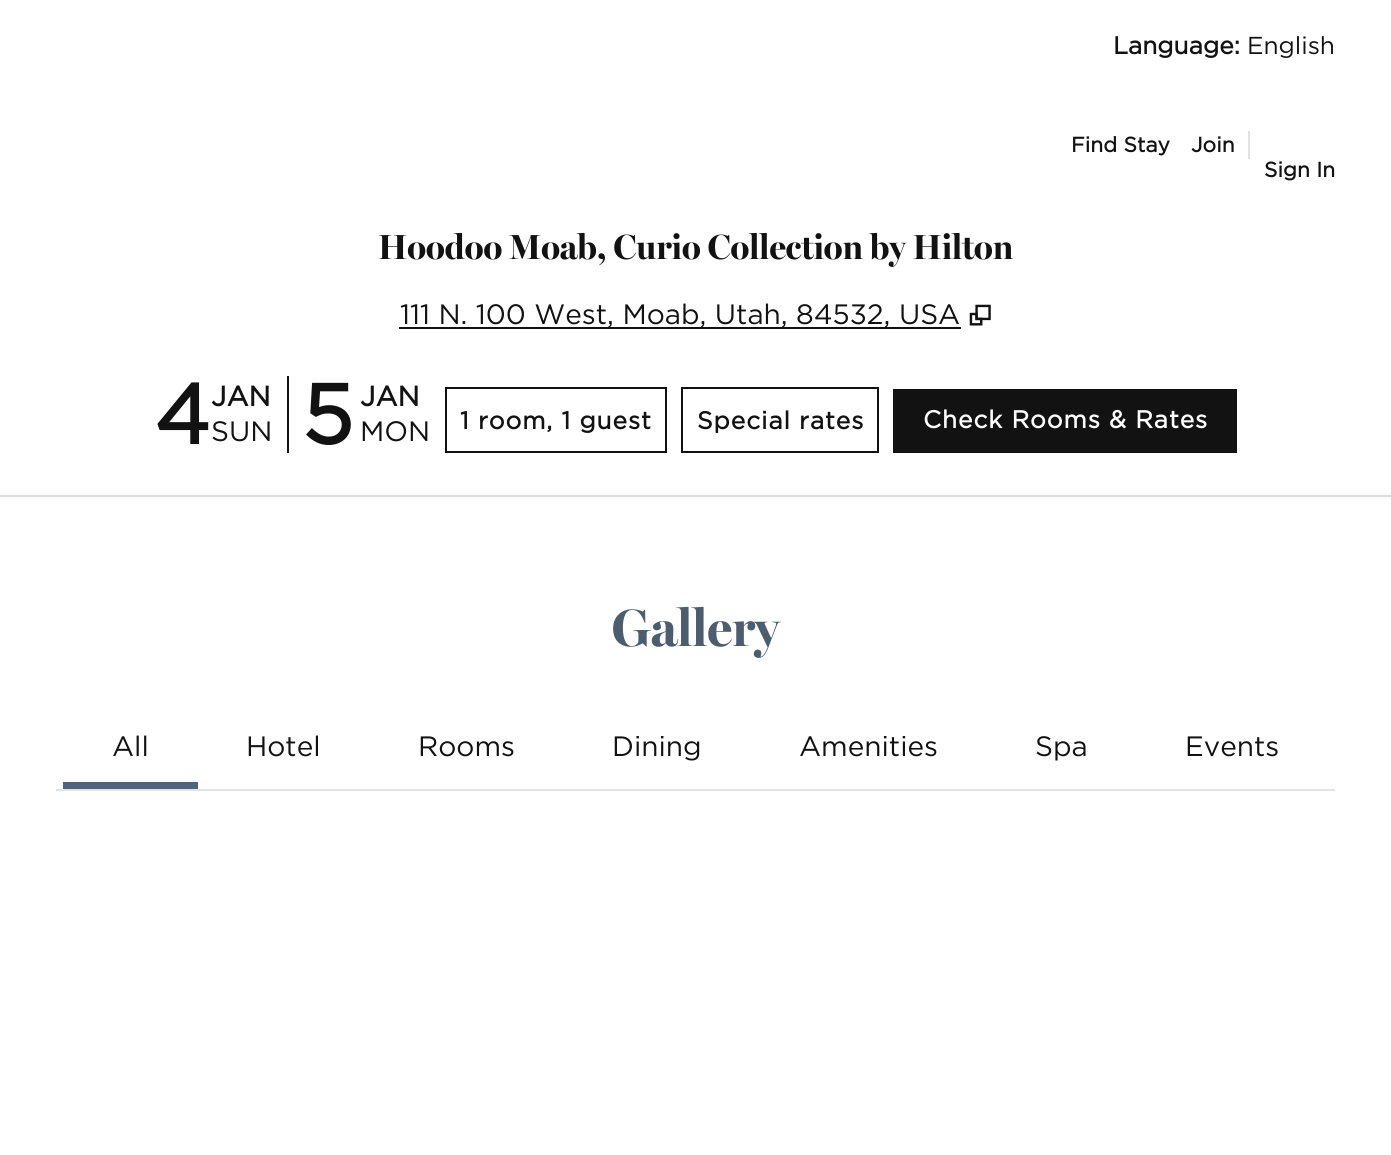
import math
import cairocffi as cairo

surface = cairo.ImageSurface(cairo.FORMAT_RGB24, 1391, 1155)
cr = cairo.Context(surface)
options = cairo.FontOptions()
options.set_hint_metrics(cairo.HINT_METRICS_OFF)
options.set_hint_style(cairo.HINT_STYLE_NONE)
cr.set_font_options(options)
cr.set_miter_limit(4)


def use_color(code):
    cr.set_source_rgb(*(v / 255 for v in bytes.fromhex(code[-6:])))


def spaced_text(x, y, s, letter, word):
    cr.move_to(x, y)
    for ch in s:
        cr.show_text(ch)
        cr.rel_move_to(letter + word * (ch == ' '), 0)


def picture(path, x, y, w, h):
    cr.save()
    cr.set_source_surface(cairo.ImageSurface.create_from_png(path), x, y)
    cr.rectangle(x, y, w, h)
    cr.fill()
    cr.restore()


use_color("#ffffff")
cr.paint()
cr.select_font_face("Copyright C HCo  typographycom", cairo.FONT_SLANT_NORMAL, cairo.FONT_WEIGHT_BOLD)
cr.set_font_size(24.5)
use_color("#121212")
cr.move_to(1113, 54)
cr.show_text("Language:")
cr.select_font_face("Copyright C HCo  typographycom Light")
cr.move_to(1247, 54)
cr.show_text("English")
cr.select_font_face("Copyright C HCo  typographycom", cairo.FONT_SLANT_NORMAL, cairo.FONT_WEIGHT_BOLD)
cr.set_font_size(21)
cr.move_to(1071, 152)
cr.show_text("Find Stay")
use_color("#e3e3e3")
cr.rectangle(1248, 131, 2, 28)
cr.fill()
use_color("#121212")
cr.move_to(1191, 152)
cr.show_text("Join")
cr.move_to(1264, 177)
cr.show_text("Sign In")
use_color("#dcdcdc")
cr.rectangle(0, 495, 1391, 2)
cr.fill()
cr.select_font_face("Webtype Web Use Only", cairo.FONT_SLANT_NORMAL, cairo.FONT_WEIGHT_BOLD)
cr.set_font_size(35)
use_color("#121212")
cr.move_to(378, 259)
cr.show_text("Hoodoo Moab, Curio Collection by Hilton")
cr.rectangle(399, 327, 562, 2)
cr.fill()
cr.select_font_face("Copyright C HCo  typographycom Light")
cr.set_font_size(28)
cr.move_to(400, 324)
cr.show_text("111 N. 100 West, Moab, Utah, 84532, USA")
picture("img1.png", 969, 304, 22, 22)
cr.select_font_face("Copyright C HCo  typographycom", cairo.FONT_SLANT_NORMAL, cairo.FONT_WEIGHT_BOLD)
cr.set_font_size(84)
cr.move_to(154, 444)
cr.show_text("4")
cr.set_font_size(28)
cr.move_to(211, 406)
cr.show_text("JAN")
cr.select_font_face("Copyright C HCo  typographycom Light")
cr.move_to(211, 441)
cr.show_text("SUN")
cr.rectangle(287, 376, 2, 77)
cr.fill()
cr.select_font_face("Copyright C HCo  typographycom", cairo.FONT_SLANT_NORMAL, cairo.FONT_WEIGHT_BOLD)
cr.set_font_size(84)
cr.move_to(302, 444)
cr.show_text("5")
cr.set_font_size(28)
cr.move_to(360, 406)
cr.show_text("JAN")
cr.select_font_face("Copyright C HCo  typographycom Light")
cr.move_to(360, 441)
cr.show_text("MON")
cr.rectangle(446, 388, 220, 64)
cr.stroke()
cr.select_font_face("Copyright C HCo  typographycom", cairo.FONT_SLANT_NORMAL, cairo.FONT_WEIGHT_BOLD)
cr.set_font_size(24.5)
spaced_text(460, 429, "1 room, 1 guest", 0.9, 0)
cr.rectangle(682, 388, 196, 64)
cr.stroke()
spaced_text(697, 429, "Special rates", 0.9, 0)
cr.rectangle(893, 389, 344, 64)
cr.fill()
use_color("#ffffff")
spaced_text(923, 428, "Check Rooms & Rates", 0.9, 0)
cr.select_font_face("Webtype Web Use Only", cairo.FONT_SLANT_NORMAL, cairo.FONT_WEIGHT_BOLD)
cr.set_font_size(52.5)
use_color("#4d5d70")
cr.move_to(612, 646)
cr.show_text("Gallery")
use_color("#e3e3e3")
cr.rectangle(56, 789, 1279, 2)
cr.fill()
use_color("#4f647d")
cr.rectangle(63, 782, 135, 7)
cr.fill()
cr.select_font_face("Copyright C HCo  typographycom Light")
cr.set_font_size(28)
use_color("#121212")
cr.move_to(112, 756)
cr.show_text("All")
cr.move_to(246, 756)
cr.show_text("Hotel")
cr.move_to(418, 756)
cr.show_text("Rooms")
cr.move_to(612, 756)
cr.show_text("Dining")
cr.move_to(799, 756)
cr.show_text("Amenities")
cr.move_to(1035, 756)
cr.show_text("Spa")
cr.move_to(1185, 756)
cr.show_text("Events")
surface.write_to_png("result.png")
